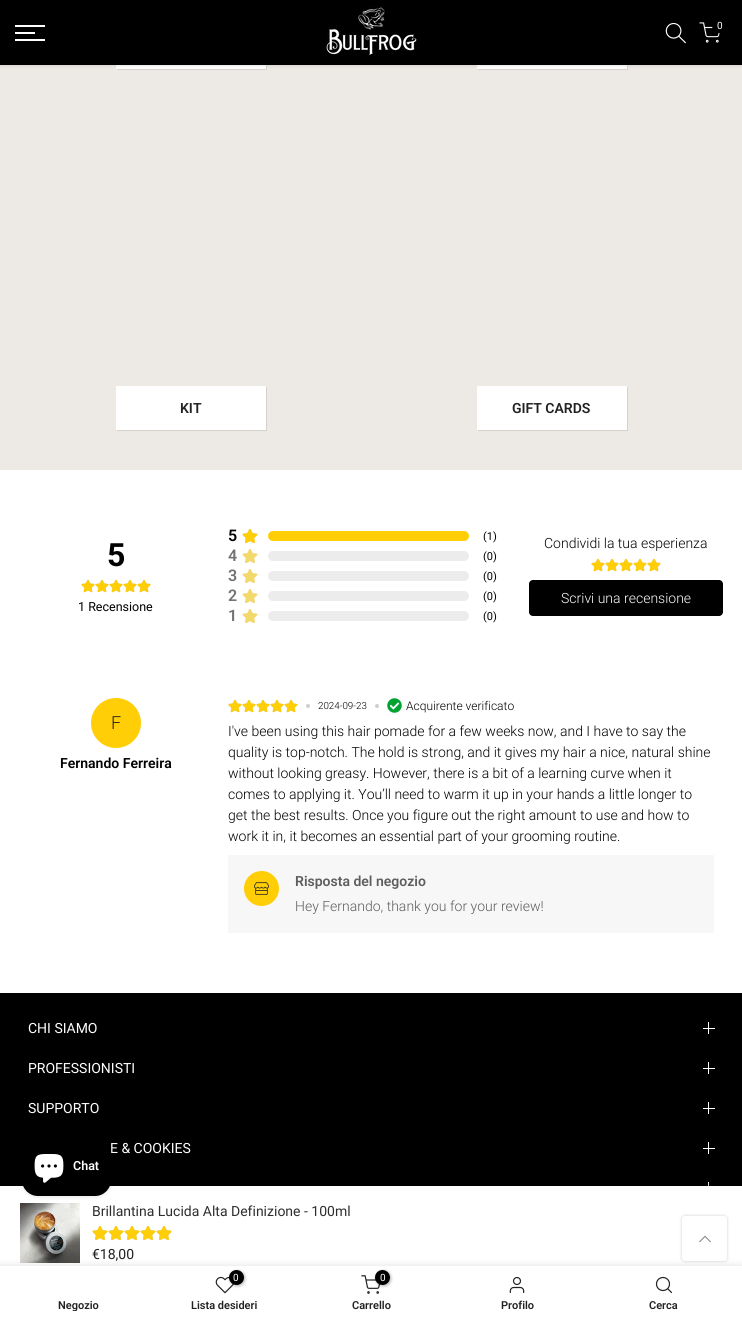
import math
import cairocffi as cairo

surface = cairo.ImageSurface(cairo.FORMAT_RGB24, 742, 1321)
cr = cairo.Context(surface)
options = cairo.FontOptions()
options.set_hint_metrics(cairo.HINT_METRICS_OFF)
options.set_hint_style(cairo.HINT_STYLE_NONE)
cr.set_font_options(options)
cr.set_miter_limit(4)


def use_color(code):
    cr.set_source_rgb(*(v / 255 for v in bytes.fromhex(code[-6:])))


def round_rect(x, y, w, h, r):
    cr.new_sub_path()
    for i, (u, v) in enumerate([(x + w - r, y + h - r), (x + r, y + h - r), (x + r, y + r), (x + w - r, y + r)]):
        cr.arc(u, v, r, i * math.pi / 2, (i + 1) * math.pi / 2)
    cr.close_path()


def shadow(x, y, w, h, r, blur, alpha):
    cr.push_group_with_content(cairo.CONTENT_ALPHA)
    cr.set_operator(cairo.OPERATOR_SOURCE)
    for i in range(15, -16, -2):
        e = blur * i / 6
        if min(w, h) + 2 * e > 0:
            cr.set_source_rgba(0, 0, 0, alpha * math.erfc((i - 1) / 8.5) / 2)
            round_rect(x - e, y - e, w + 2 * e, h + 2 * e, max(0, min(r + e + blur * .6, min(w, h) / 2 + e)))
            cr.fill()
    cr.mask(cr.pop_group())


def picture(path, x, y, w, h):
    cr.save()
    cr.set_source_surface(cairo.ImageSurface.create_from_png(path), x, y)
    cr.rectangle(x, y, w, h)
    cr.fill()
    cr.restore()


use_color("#ffffff")
cr.paint()
use_color("#ede9e5")
cr.rectangle(0, 65, 742, 405)
cr.fill()
use_color("#d5d2ce")
cr.new_path()
cr.move_to(117, 69)
cr.line_to(117, 70)
cr.line_to(267, 70)
cr.line_to(267, 26)
cr.line_to(266, 26)
cr.line_to(266, 69)
cr.close_path()
cr.fill()
use_color("#ffffff")
cr.rectangle(116, 65, 150, 4)
cr.fill()
use_color("#d5d2ce")
cr.new_path()
cr.move_to(478, 69)
cr.line_to(478, 70)
cr.line_to(628, 70)
cr.line_to(628, 26)
cr.line_to(627, 26)
cr.line_to(627, 69)
cr.close_path()
cr.fill()
use_color("#ffffff")
cr.rectangle(477, 65, 150, 4)
cr.fill()
use_color("#000000")
shadow(0, 1, 742, 65, 0, 1.5, 0.1)
use_color("#000000")
cr.rectangle(0, 0, 742, 65)
cr.fill()
use_color("#ffffff")
cr.rectangle(15, 25, 30, 2)
cr.fill()
cr.rectangle(15, 32, 20, 2)
cr.fill()
cr.rectangle(15, 39, 30, 2)
cr.fill()
picture("img1.png", 326, 7, 91, 49)
picture("img2.png", 665, 22, 21, 22)
picture("img3.png", 699, 22, 21, 21)
use_color("#000000")
shadow(713, 19, 15, 15, 7.5, 1.5, 0.3)
use_color("#000000")
cr.arc(719.5, 25.5, 7.5, 0, 2 * math.pi)
cr.fill()
cr.select_font_face("Roboto")
cr.set_font_size(10)
use_color("#ffffff")
cr.move_to(717, 29)
cr.show_text("0")
use_color("#d5d2ce")
cr.new_path()
cr.move_to(117, 430)
cr.line_to(117, 431)
cr.line_to(267, 431)
cr.line_to(267, 387)
cr.line_to(266, 387)
cr.line_to(266, 430)
cr.close_path()
cr.fill()
use_color("#ffffff")
cr.rectangle(116, 386, 150, 44)
cr.fill()
cr.select_font_face("Roboto SemiBold")
cr.set_font_size(14)
use_color("#222222")
cr.move_to(180, 413)
cr.show_text("KIT")
use_color("#d5d2ce")
cr.new_path()
cr.move_to(478, 430)
cr.line_to(478, 431)
cr.line_to(628, 431)
cr.line_to(628, 387)
cr.line_to(627, 387)
cr.line_to(627, 430)
cr.close_path()
cr.fill()
use_color("#ffffff")
cr.rectangle(477, 386, 150, 44)
cr.fill()
use_color("#222222")
cr.move_to(512, 413)
cr.show_text("GIFT CARDS")
cr.select_font_face("Roboto", cairo.FONT_SLANT_NORMAL, cairo.FONT_WEIGHT_BOLD)
cr.set_font_size(32)
use_color("#000000")
cr.move_to(107, 566)
cr.show_text("5")
picture("img5.png", 81, 580, 14, 13)
picture("img4.png", 81, 579, 14, 14)
picture("img5.png", 95, 580, 14, 13)
picture("img4.png", 95, 579, 14, 14)
picture("img5.png", 109, 580, 14, 13)
picture("img4.png", 109, 579, 14, 14)
picture("img5.png", 123, 580, 14, 13)
picture("img4.png", 123, 579, 14, 14)
picture("img5.png", 137, 580, 14, 13)
picture("img4.png", 137, 579, 14, 14)
cr.select_font_face("Roboto")
cr.set_font_size(12.5)
cr.move_to(78, 611)
cr.show_text("1 Recensione")
cr.select_font_face("Roboto SemiBold")
cr.set_font_size(16)
cr.move_to(228, 541)
cr.show_text("5")
picture("img7.png", 242, 529, 16, 14)
picture("img6.png", 242, 528, 16, 16)
use_color("#ffce07")
round_rect(268, 531, 201, 10, 5)
cr.fill()
cr.select_font_face("Roboto")
cr.set_font_size(11)
use_color("#000000")
cr.move_to(483, 540)
cr.show_text("(1)")
cr.select_font_face("Roboto SemiBold")
cr.set_font_size(16)
use_color("#737373")
cr.move_to(228, 561)
cr.show_text("4")
picture("img8.png", 242, 549, 16, 14)
picture("img9.png", 242, 549, 16, 14)
use_color("#ececec")
round_rect(268, 551, 201, 10, 5)
cr.fill()
cr.select_font_face("Roboto")
cr.set_font_size(11)
use_color("#000000")
cr.move_to(483, 560)
cr.show_text("(0)")
cr.select_font_face("Roboto SemiBold")
cr.set_font_size(16)
use_color("#737373")
cr.move_to(228, 581)
cr.show_text("3")
picture("img8.png", 242, 569, 16, 14)
picture("img9.png", 242, 569, 16, 14)
use_color("#ececec")
round_rect(268, 571, 201, 10, 5)
cr.fill()
cr.select_font_face("Roboto")
cr.set_font_size(11)
use_color("#000000")
cr.move_to(483, 580)
cr.show_text("(0)")
cr.select_font_face("Roboto SemiBold")
cr.set_font_size(16)
use_color("#737373")
cr.move_to(228, 601)
cr.show_text("2")
picture("img8.png", 242, 589, 16, 14)
picture("img9.png", 242, 589, 16, 14)
use_color("#ececec")
round_rect(268, 591, 201, 10, 5)
cr.fill()
cr.select_font_face("Roboto")
cr.set_font_size(11)
use_color("#000000")
cr.move_to(483, 600)
cr.show_text("(0)")
cr.select_font_face("Roboto SemiBold")
cr.set_font_size(16)
use_color("#737373")
cr.move_to(228, 621)
cr.show_text("1")
picture("img8.png", 242, 609, 16, 14)
picture("img9.png", 242, 609, 16, 14)
use_color("#ececec")
round_rect(268, 611, 201, 10, 5)
cr.fill()
cr.select_font_face("Roboto")
cr.set_font_size(11)
use_color("#000000")
cr.move_to(483, 620)
cr.show_text("(0)")
cr.select_font_face("Roboto Light")
cr.set_font_size(14)
cr.move_to(544, 548)
cr.show_text("Condividi la tua esperienza")
picture("img5.png", 591, 559, 14, 13)
picture("img4.png", 591, 558, 14, 14)
picture("img5.png", 605, 559, 14, 13)
picture("img4.png", 605, 558, 14, 14)
picture("img5.png", 619, 559, 14, 13)
picture("img4.png", 619, 558, 14, 14)
picture("img5.png", 633, 559, 14, 13)
picture("img4.png", 633, 558, 14, 14)
picture("img5.png", 647, 559, 14, 13)
picture("img4.png", 647, 558, 14, 14)
round_rect(529, 580, 194, 36, 4)
cr.fill()
use_color("#ffffff")
cr.move_to(561, 603)
cr.show_text("Scrivi una recensione")
use_color("#ffce07")
cr.new_path()
cr.arc(116, 723, 25, 0, 2 * math.pi)
cr.fill()
cr.set_font_size(18)
use_color("#222222")
cr.move_to(111, 729)
cr.show_text("F")
cr.select_font_face("Roboto SemiBold")
cr.set_font_size(14)
use_color("#000000")
cr.move_to(60, 768)
cr.show_text("Fernando Ferreira")
picture("img5.png", 228, 700, 14, 13)
picture("img4.png", 228, 699, 14, 14)
picture("img5.png", 242, 700, 14, 13)
picture("img4.png", 242, 699, 14, 14)
picture("img5.png", 256, 700, 14, 13)
picture("img4.png", 256, 699, 14, 14)
picture("img5.png", 270, 700, 14, 13)
picture("img4.png", 270, 699, 14, 14)
picture("img5.png", 284, 700, 14, 13)
picture("img4.png", 284, 699, 14, 14)
use_color("#cecece")
cr.arc(308, 706, 2, 0, 2 * math.pi)
cr.fill()
cr.select_font_face("Roboto Light")
cr.set_font_size(9.75)
use_color("#000000")
cr.move_to(318, 709)
cr.show_text("2024-09-23")
use_color("#cecece")
cr.new_path()
cr.arc(377, 706, 2, 0, 2 * math.pi)
cr.fill()
picture("img10.png", 387, 698, 15, 15)
cr.set_font_size(12)
use_color("#000000")
cr.move_to(406, 710)
cr.show_text("Acquirente verificato")
cr.set_font_size(14)
cr.move_to(228, 736)
cr.show_text("I've been using this hair pomade for a few weeks now, and I have to say the")
cr.move_to(228, 757)
cr.show_text("quality is top-notch. The hold is strong, and it gives my hair a nice, natural shine")
cr.move_to(228, 778)
cr.show_text("without looking greasy. However, there is a bit of a learning curve when it")
cr.move_to(228, 799)
cr.show_text("comes to applying it. You’ll need to warm it up in your hands a little longer to")
cr.move_to(228, 820)
cr.show_text("get the best results. Once you figure out the right amount to use and how to")
cr.move_to(228, 841)
cr.show_text("work it in, it becomes an essential part of your grooming routine.")
use_color("#f7f7f7")
cr.rectangle(228, 855, 486, 78)
cr.fill()
use_color("#ffce07")
cr.arc(261.5, 888.5, 17.5, 0, 2 * math.pi)
cr.fill()
picture("img11.png", 254, 882, 15, 13)
cr.select_font_face("Roboto SemiBold")
use_color("#5e5e5e")
cr.move_to(295, 886)
cr.show_text("Risposta del negozio")
cr.select_font_face("Roboto Light")
cr.move_to(295, 911)
cr.show_text("Hey Fernando, thank you for your review!")
use_color("#000000")
cr.rectangle(0, 993, 742, 193)
cr.fill()
cr.select_font_face("Roboto")
use_color("#ffffff")
cr.move_to(28, 1033)
cr.show_text("CHI SIAMO")
cr.rectangle(708, 1022, 1, 12)
cr.fill()
cr.rectangle(703, 1028, 12, 1)
cr.fill()
cr.move_to(28, 1073)
cr.show_text("PROFESSIONISTI")
cr.rectangle(708, 1062, 1, 12)
cr.fill()
cr.rectangle(703, 1068, 12, 1)
cr.fill()
cr.move_to(28, 1113)
cr.show_text("SUPPORTO")
cr.rectangle(708, 1102, 1, 12)
cr.fill()
cr.rectangle(703, 1108, 12, 1)
cr.fill()
cr.move_to(110, 1153)
cr.show_text("E & COOKIES")
cr.rectangle(708, 1142, 1, 12)
cr.fill()
cr.rectangle(703, 1148, 12, 1)
cr.fill()
cr.rectangle(708, 1182, 1, 12)
cr.fill()
use_color("#000000")
shadow(4, 1186, 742, 135, 0, 5, 0.4)
use_color("#ffffff")
cr.rectangle(0, 1186, 742, 80)
cr.fill()
picture("img13.png", 20, 1203, 60, 60)
use_color("#000000")
shadow(22, 1136, 89, 60, 16, 2.5, 0.15)
use_color("#000000")
round_rect(22, 1136, 89, 60, 16)
cr.fill()
picture("img12.png", 34, 1154, 30, 29)
cr.select_font_face("Roboto SemiBold")
cr.set_font_size(12.5)
use_color("#ffffff")
cr.move_to(73, 1170)
cr.show_text("Chat")
cr.select_font_face("Roboto")
cr.set_font_size(14)
use_color("#2e2e2e")
cr.move_to(92, 1216)
cr.show_text("Brillantina Lucida Alta Definizione - 100ml")
picture("img7.png", 92, 1226, 16, 14)
picture("img6.png", 92, 1225, 16, 16)
picture("img7.png", 108, 1226, 16, 14)
picture("img6.png", 108, 1225, 16, 16)
picture("img7.png", 124, 1226, 16, 14)
picture("img6.png", 124, 1225, 16, 16)
picture("img7.png", 140, 1226, 16, 14)
picture("img6.png", 140, 1225, 16, 16)
picture("img7.png", 156, 1226, 16, 14)
picture("img6.png", 156, 1225, 16, 16)
use_color("#222222")
cr.move_to(92, 1259)
cr.show_text("€18,00")
use_color("#000000")
shadow(0, 1266, 742, 55, 0, 4.5, 0.12)
use_color("#ffffff")
cr.rectangle(0, 1266, 742, 55)
cr.fill()
use_color("#000000")
shadow(682, 1216, 45, 45, 3, 1.5, 0.2)
use_color("#ffffff")
round_rect(682, 1216, 45, 45, 3)
cr.fill()
picture("img14.png", 699, 1235, 12, 8)
cr.save()
cr.rectangle(15, 1300, 126, 11)
cr.clip()
cr.select_font_face("Roboto SemiBold")
cr.set_font_size(11)
use_color("#222222")
cr.move_to(58, 1309)
cr.show_text("Negozio")
cr.restore()
picture("img15.png", 215, 1276, 19, 18)
use_color("#000000")
shadow(230, 1271, 15, 15, 7.5, 1.5, 0.3)
use_color("#000000")
cr.arc(236.5, 1277.5, 7.5, 0, 2 * math.pi)
cr.fill()
cr.set_font_size(10)
use_color("#ffffff")
cr.move_to(233, 1281)
cr.show_text("0")
cr.select_font_face("Roboto SemiBold")
cr.set_font_size(11)
use_color("#222222")
cr.move_to(191, 1309)
cr.show_text("Lista desideri")
picture("img16.png", 361, 1275, 19, 19)
use_color("#000000")
shadow(376, 1271, 15, 15, 7.5, 1.5, 0.3)
use_color("#000000")
cr.arc(382.5, 1277.5, 7.5, 0, 2 * math.pi)
cr.fill()
cr.select_font_face("Roboto")
cr.set_font_size(10)
use_color("#ffffff")
cr.move_to(380, 1281)
cr.show_text("0")
cr.select_font_face("Roboto SemiBold")
cr.set_font_size(11)
use_color("#222222")
cr.move_to(352, 1309)
cr.show_text("Carrello")
picture("img17.png", 509, 1276, 16, 18)
cr.move_to(501, 1309)
cr.show_text("Profilo")
cr.new_path()
cr.arc(663, 1284, 6.5, 0, 2 * math.pi)
cr.set_line_width(1.2)
cr.stroke()
cr.new_path()
cr.move_to(671.5, 1292.5)
cr.line_to(668, 1289)
cr.set_line_cap(cairo.LINE_CAP_ROUND)
cr.set_line_join(cairo.LINE_JOIN_ROUND)
cr.stroke()
cr.move_to(649, 1309)
cr.show_text("Cerca")
surface.write_to_png("result.png")
